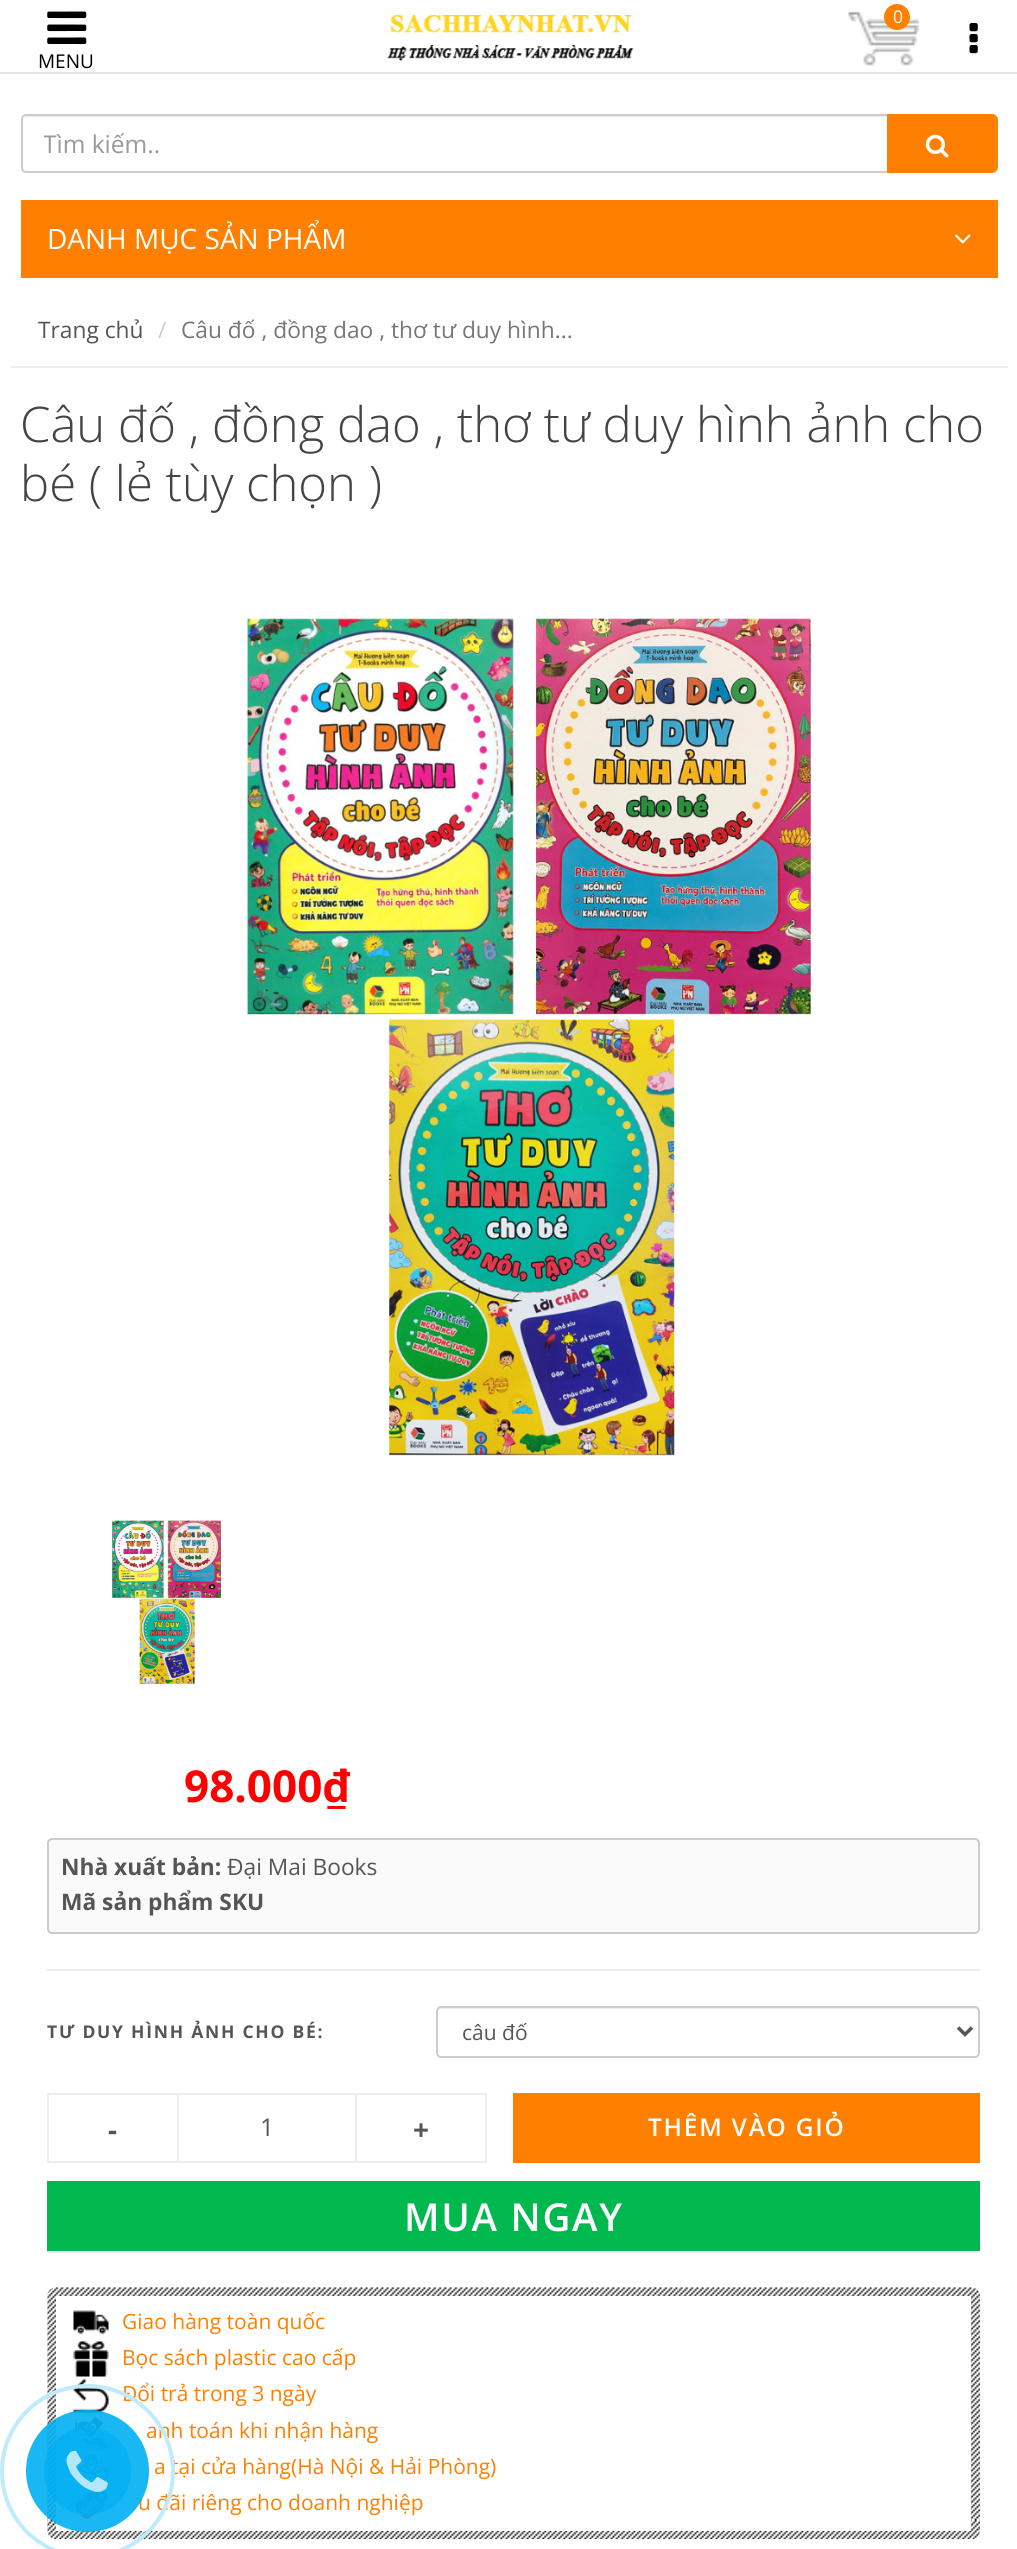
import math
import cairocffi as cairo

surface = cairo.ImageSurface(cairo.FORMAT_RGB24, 1017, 2549)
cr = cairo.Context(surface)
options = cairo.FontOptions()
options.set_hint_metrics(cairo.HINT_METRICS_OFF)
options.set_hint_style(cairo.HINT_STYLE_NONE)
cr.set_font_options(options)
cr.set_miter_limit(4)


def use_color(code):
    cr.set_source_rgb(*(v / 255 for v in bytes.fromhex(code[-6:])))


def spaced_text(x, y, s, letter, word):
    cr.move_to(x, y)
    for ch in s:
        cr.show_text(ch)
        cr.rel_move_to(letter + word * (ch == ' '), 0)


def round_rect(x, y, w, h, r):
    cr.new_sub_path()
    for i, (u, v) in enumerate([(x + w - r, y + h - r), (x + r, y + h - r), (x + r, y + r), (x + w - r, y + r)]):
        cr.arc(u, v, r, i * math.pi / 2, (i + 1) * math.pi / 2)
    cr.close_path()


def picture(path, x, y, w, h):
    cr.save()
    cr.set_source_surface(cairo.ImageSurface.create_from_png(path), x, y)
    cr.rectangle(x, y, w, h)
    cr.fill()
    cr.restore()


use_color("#ffffff")
cr.paint()
use_color("#e6e4e4")
cr.rectangle(0, 72, 1017, 2)
cr.fill()
picture("img1.png", 387, 15, 247, 46)
picture("img2.png", 848, 11, 72, 55)
use_color("#ff7f00")
cr.arc(897, 17, 13, 0, 2 * math.pi)
cr.fill()
cr.select_font_face("Open Sans")
cr.set_font_size(17.5)
use_color("#ffffff")
cr.move_to(893, 23)
cr.show_text("0")
picture("img3.png", 969, 23, 9, 31)
picture("img4.png", 47, 11, 40, 34)
cr.set_font_size(19)
use_color("#000000")
cr.move_to(38, 68)
cr.show_text("MENU")
use_color("#ececec")
cr.new_path()
cr.move_to(26, 117)
cr.line_to(992, 117)
cr.curve_to(994, 117, 996, 119, 996, 121)
cr.curve_to(996, 118, 995, 116, 992, 116)
cr.line_to(27, 116)
cr.curve_to(24, 116, 23, 118, 23, 121)
cr.curve_to(23, 119, 24, 117, 26, 117)
cr.close_path()
cr.fill()
round_rect(22, 115, 975, 57, 4)
use_color("#cccccc")
cr.stroke()
cr.save()
cr.rectangle(44, 128, 931, 33)
cr.clip()
cr.set_font_size(24.5)
use_color("#999999")
cr.move_to(43, 153)
cr.show_text("Tìm kiếm..")
cr.restore()
use_color("#ff7f00")
cr.new_path()
cr.move_to(887, 114)
cr.line_to(991, 114)
cr.curve_to(995, 114, 998, 117, 998, 121)
cr.line_to(998, 166)
cr.curve_to(998, 170, 995, 173, 991, 173)
cr.line_to(887, 173)
cr.close_path()
cr.fill()
picture("img5.png", 925, 134, 24, 24)
cr.rectangle(21, 200, 977, 78)
cr.fill()
cr.set_font_size(28)
use_color("#ffffff")
cr.move_to(47, 249)
cr.show_text("DANH MỤC SẢN PHẨM")
picture("img6.png", 955, 234, 16, 10)
use_color("#eeeeee")
cr.rectangle(11, 366, 997, 2)
cr.fill()
cr.set_font_size(22.75)
use_color("#555555")
cr.move_to(38, 338)
cr.show_text("Trang chủ")
use_color("#cccccc")
cr.move_to(158, 338)
cr.show_text("/")
use_color("#777777")
cr.move_to(181, 338)
cr.show_text("Câu đố , đồng dao , thơ tư duy hình...")
cr.select_font_face("Open Sans Light")
cr.set_font_size(49)
use_color("#444444")
cr.move_to(20, 442)
cr.show_text("Câu đố , đồng dao , thơ tư duy hình ảnh cho")
cr.move_to(20, 501)
cr.show_text("bé ( lẻ tùy chọn )")
picture("img7.png", 246, 618, 566, 838)
picture("img8.png", 112, 1520, 109, 164)
cr.select_font_face("Open Sans", cairo.FONT_SLANT_NORMAL, cairo.FONT_WEIGHT_BOLD)
cr.set_font_size(44)
use_color("#ff0000")
cr.move_to(184, 1802)
cr.show_text("98.000₫")
use_color("#fafafa")
round_rect(48, 1839, 931, 94, 4)
cr.fill_preserve()
use_color("#cccccc")
cr.stroke()
cr.set_font_size(22.75)
use_color("#555555")
cr.move_to(61, 1875)
cr.show_text("Nhà xuất bản:")
cr.select_font_face("Open Sans")
cr.move_to(227, 1875)
cr.show_text("Đại Mai Books")
cr.select_font_face("Open Sans", cairo.FONT_SLANT_NORMAL, cairo.FONT_WEIGHT_BOLD)
cr.move_to(61, 1910)
cr.show_text("Mã sản phẩm SKU")
use_color("#eeeeee")
cr.rectangle(47, 1969, 933, 2)
cr.fill()
cr.set_font_size(17.5)
use_color("#555555")
spaced_text(47, 2038, "TƯ DUY HÌNH ẢNH CHO BÉ:", 1.75, 0)
use_color("#ececec")
cr.new_path()
cr.move_to(441, 2009)
cr.line_to(975, 2009)
cr.curve_to(977, 2009, 978, 2011, 978, 2012)
cr.line_to(978, 2011)
cr.curve_to(978, 2009, 976, 2007, 974, 2007)
cr.line_to(442, 2007)
cr.curve_to(440, 2007, 438, 2009, 438, 2011)
cr.line_to(438, 2012)
cr.curve_to(438, 2011, 439, 2009, 441, 2009)
cr.close_path()
cr.fill()
round_rect(437, 2007, 542, 50, 4)
use_color("#cccccc")
cr.stroke()
cr.new_path()
cr.move_to(958, 2027.5)
cr.line_to(965, 2034.5)
cr.line_to(972, 2027.5)
use_color("#555555")
cr.set_line_width(3.5)
cr.stroke()
cr.select_font_face("Open Sans")
cr.set_font_size(21)
cr.move_to(462, 2040)
cr.show_text("câu đố")
cr.rectangle(48, 2094, 130, 68)
use_color("#eeeeee")
cr.set_line_width(2)
cr.stroke()
cr.select_font_face("Open Sans", cairo.FONT_SLANT_NORMAL, cairo.FONT_WEIGHT_BOLD)
cr.set_font_size(28)
use_color("#555555")
cr.move_to(108, 2140)
cr.show_text("-")
use_color("#eeeeee")
cr.rectangle(179, 2093, 176, 2)
cr.fill()
cr.rectangle(179, 2161, 176, 2)
cr.fill()
cr.select_font_face("Open Sans")
cr.set_font_size(24.5)
use_color("#555555")
cr.move_to(260, 2136)
cr.show_text("1")
cr.rectangle(356, 2094, 130, 68)
use_color("#eeeeee")
cr.stroke()
cr.select_font_face("Open Sans", cairo.FONT_SLANT_NORMAL, cairo.FONT_WEIGHT_BOLD)
cr.set_font_size(28)
use_color("#555555")
cr.move_to(413, 2140)
cr.show_text("+")
use_color("#ff7f00")
cr.rectangle(513, 2093, 467, 70)
cr.fill()
cr.select_font_face("Open Sans SemiBold")
cr.set_font_size(24.5)
use_color("#ffffff")
spaced_text(648, 2136, "THÊM VÀO GIỎ", 1.75, 0)
use_color("#00b84e")
cr.rectangle(47, 2181, 933, 70)
cr.fill()
cr.set_font_size(38.5)
use_color("#ffffff")
spaced_text(404, 2231, "MUA NGAY", 1.75, 0)
use_color("#eeeeee")
cr.rectangle(47, 2251, 933, 2)
cr.fill()
picture("img9.png", 47, 2287, 933, 253)
use_color("#ffffff")
cr.rectangle(56, 2296, 915, 235)
cr.fill()
picture("img10.png", 73, 2310, 36, 25)
cr.select_font_face("Open Sans")
cr.set_font_size(21)
use_color("#ff7f00")
cr.move_to(122, 2329)
cr.show_text("Giao hàng toàn quốc")
picture("img11.png", 73, 2341, 36, 36)
cr.move_to(122, 2365)
cr.show_text("Bọc sách plastic cao cấp")
picture("img12.png", 73, 2378, 36, 36)
cr.move_to(122, 2401)
cr.show_text("Đổi trả trong 3 ngày")
picture("img13.png", 75, 2416, 33, 33)
cr.move_to(146, 2438)
cr.show_text("anh toán khi nhận hàng")
picture("img14.png", 73, 2455, 36, 29)
cr.move_to(154, 2474)
cr.show_text("a tại cửa hàng(Hà Nội & Hải Phòng)")
picture("img15.png", 75, 2490, 32, 29)
cr.move_to(138, 2510)
cr.show_text("u đãi riêng cho doanh nghiệp")
cr.new_path()
cr.arc(87.5, 2471.5, 85.5, 0, 2 * math.pi)
use_color("#bfebfc")
cr.set_line_width(4)
cr.stroke()
cr.set_source_rgba(0, 0.686, 0.949, 0.9)
round_rect(26, 2410, 123, 122, 61)
cr.fill()
cr.set_source_rgba(0, 0.686, 0.949, 0.7)
round_rect(44, 2427, 87, 88, 43.5)
cr.fill()
picture("img16.png", 66, 2450, 42, 42)
surface.write_to_png("result.png")
